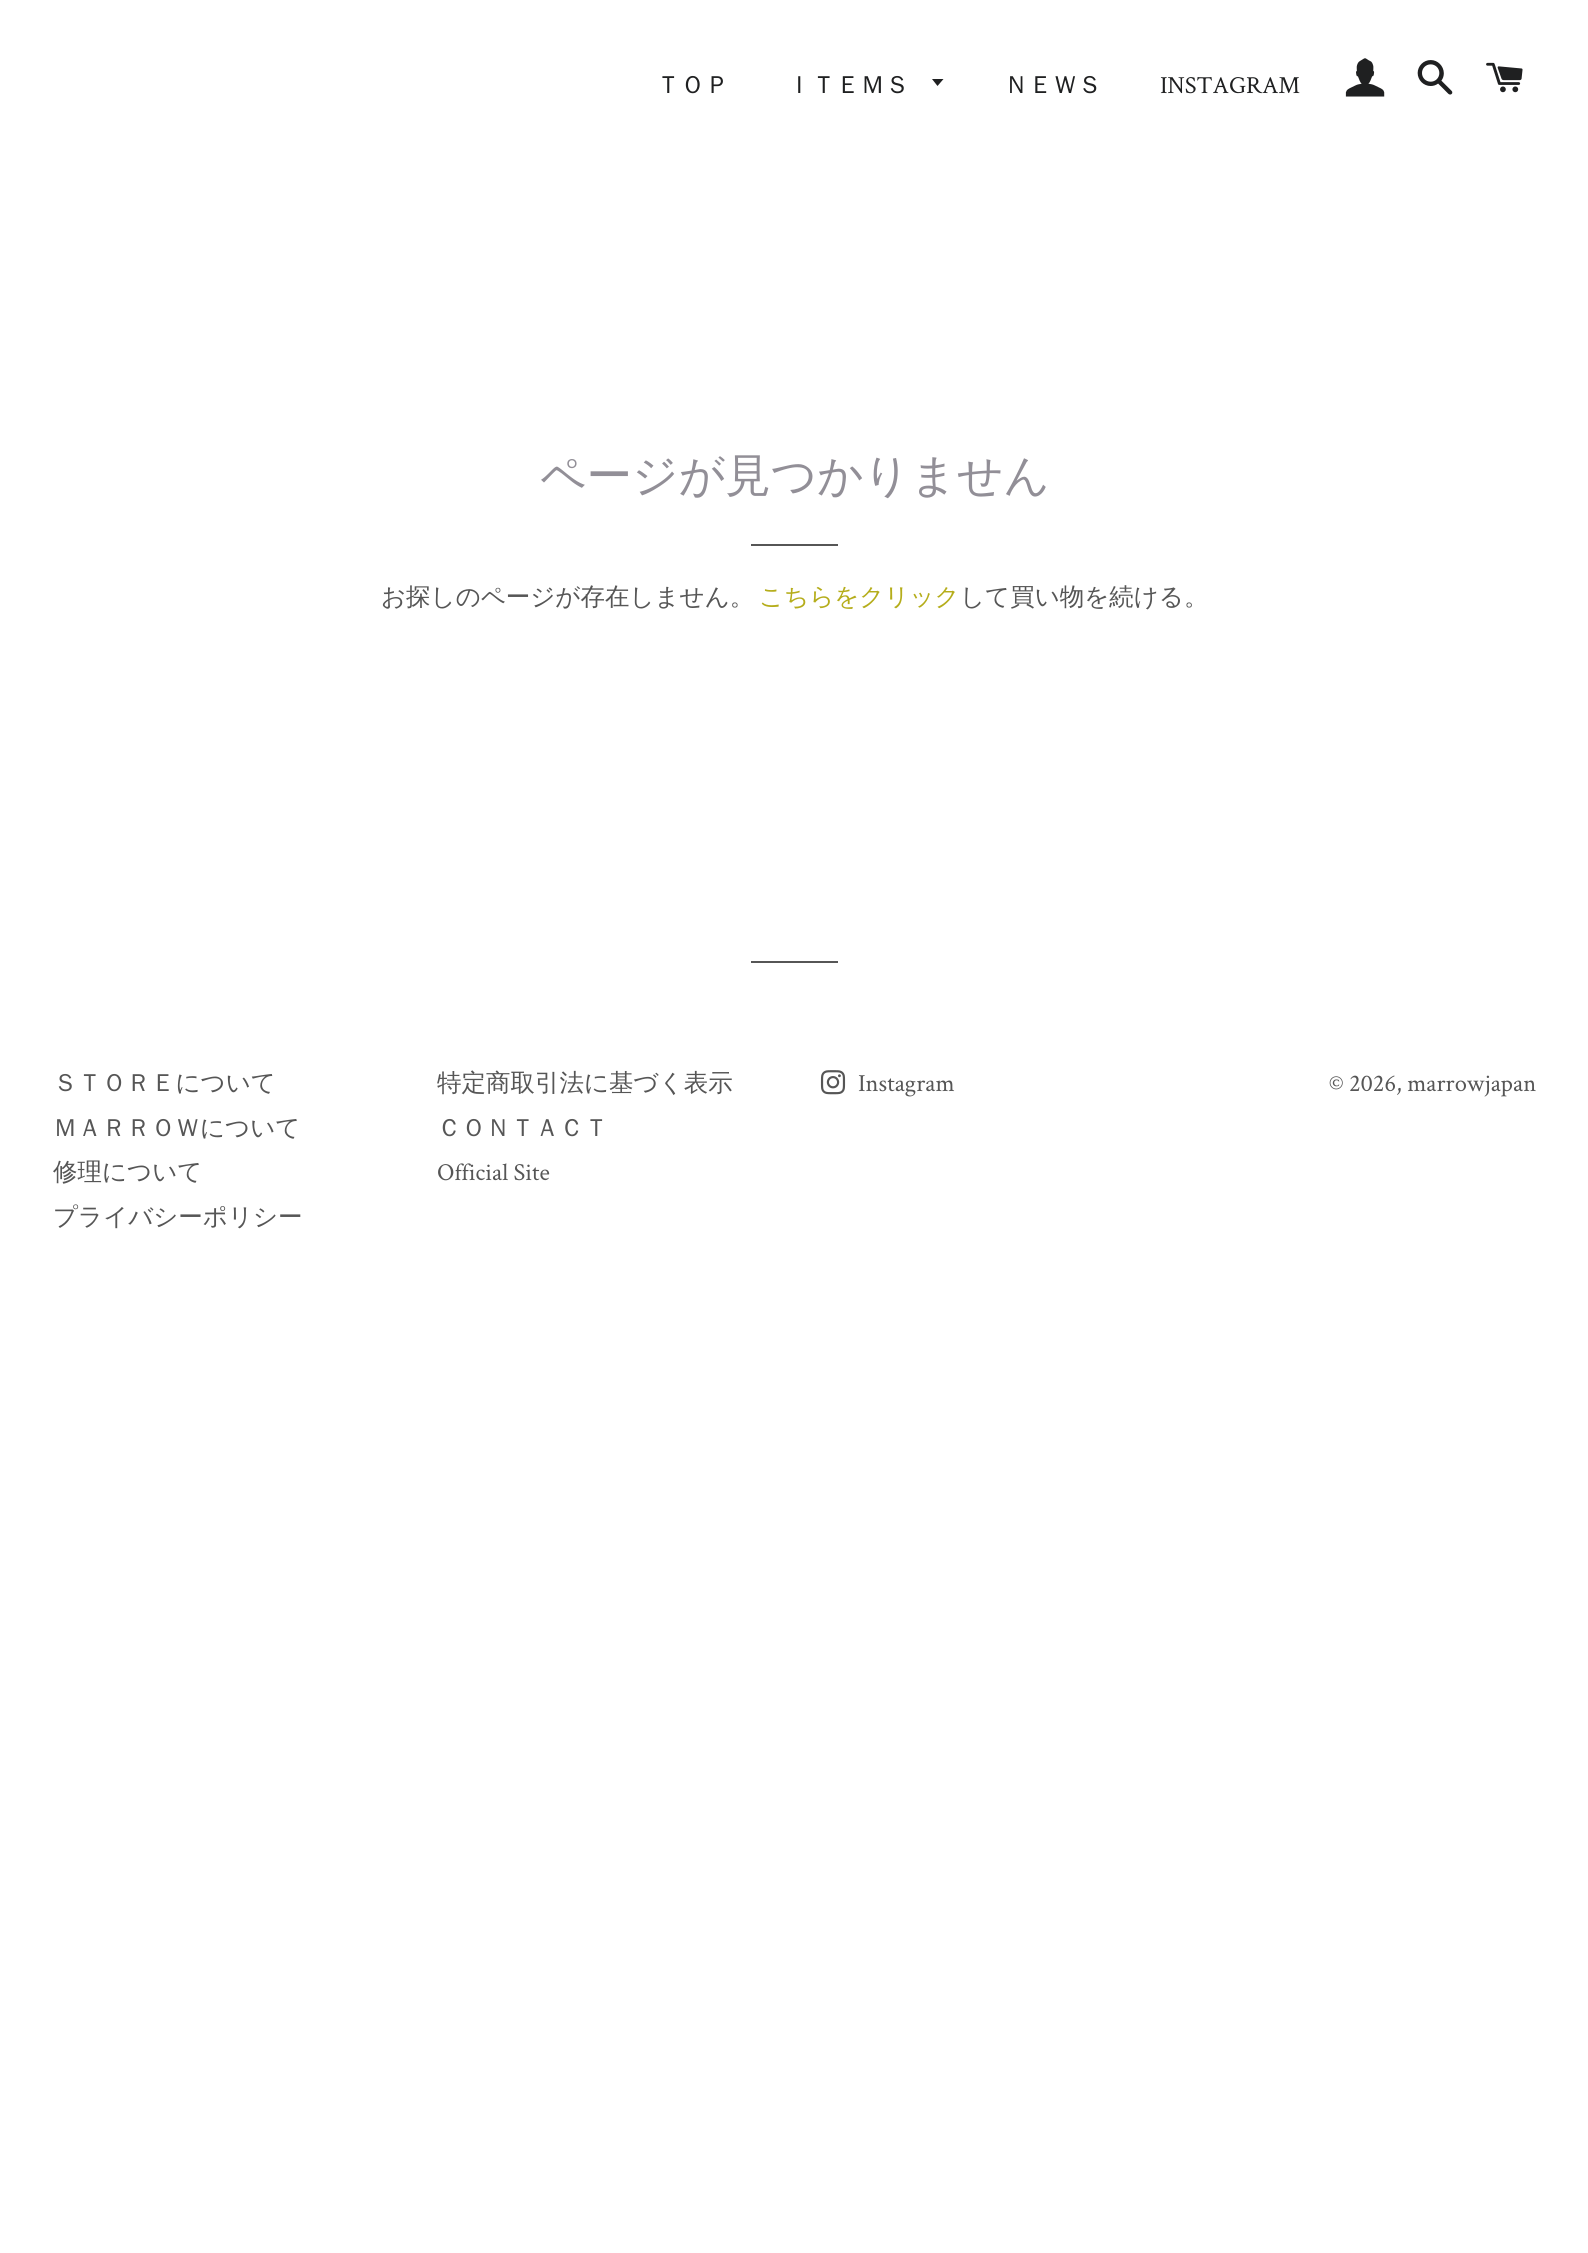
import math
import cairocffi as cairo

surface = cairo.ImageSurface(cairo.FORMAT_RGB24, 1588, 2253)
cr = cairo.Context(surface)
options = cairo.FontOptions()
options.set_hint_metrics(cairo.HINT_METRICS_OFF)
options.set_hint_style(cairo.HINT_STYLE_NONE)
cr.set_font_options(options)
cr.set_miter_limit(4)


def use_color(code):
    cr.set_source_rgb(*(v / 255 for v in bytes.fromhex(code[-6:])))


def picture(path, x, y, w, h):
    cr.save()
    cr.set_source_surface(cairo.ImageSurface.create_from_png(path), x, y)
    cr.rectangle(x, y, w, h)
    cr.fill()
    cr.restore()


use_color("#ffffff")
cr.paint()
cr.select_font_face("WenQuanYi Zen Hei Medium")
cr.set_font_size(24.5)
use_color("#1f2021")
cr.move_to(656, 93)
cr.show_text("ＴＯＰ")
cr.move_to(787, 93)
cr.show_text("ＩＴＥＭＳ")
cr.new_path()
cr.move_to(932, 79)
cr.line_to(937.5, 86)
cr.line_to(943.5, 79)
cr.close_path()
cr.fill()
cr.move_to(1004, 93)
cr.show_text("ＮＥＷＳ")
cr.select_font_face("Crimson Text")
cr.move_to(1160, 93)
cr.show_text("INSTAGRAM")
picture("img1.png", 1345, 58, 40, 39)
picture("img2.png", 1417, 60, 36, 35)
picture("img3.png", 1486, 62, 37, 31)
cr.select_font_face("WenQuanYi Zen Hei Medium")
cr.set_font_size(45.5)
use_color("#928f97")
cr.move_to(540, 491)
cr.show_text("ページが見つかりません")
use_color("#565656")
cr.rectangle(751, 544, 87, 2)
cr.fill()
cr.set_font_size(24.5)
cr.move_to(381, 605)
cr.show_text("お探しのページが存在しません。")
use_color("#b5ad1b")
cr.move_to(759, 605)
cr.show_text("こちらをクリック")
use_color("#565656")
cr.move_to(960, 605)
cr.show_text("して買い物を続ける。")
cr.rectangle(751, 961, 87, 2)
cr.fill()
cr.move_to(53, 1091)
cr.show_text("ＳＴＯＲＥについて")
cr.move_to(53, 1136)
cr.show_text("ＭＡＲＲＯＷについて")
cr.move_to(53, 1180)
cr.show_text("修理について")
cr.move_to(53, 1225)
cr.show_text("プライバシーポリシー")
cr.move_to(437, 1091)
cr.show_text("特定商取引法に基づく表示")
cr.move_to(437, 1136)
cr.show_text("ＣＯＮＴＡＣＴ")
cr.select_font_face("Crimson Text")
cr.move_to(437, 1180)
cr.show_text("Official Site")
picture("img4.png", 820, 1070, 26, 25)
cr.move_to(858, 1091)
cr.show_text("Instagram")
cr.move_to(1329, 1091)
cr.show_text("© 2026, marrowjapan")
surface.write_to_png("result.png")
